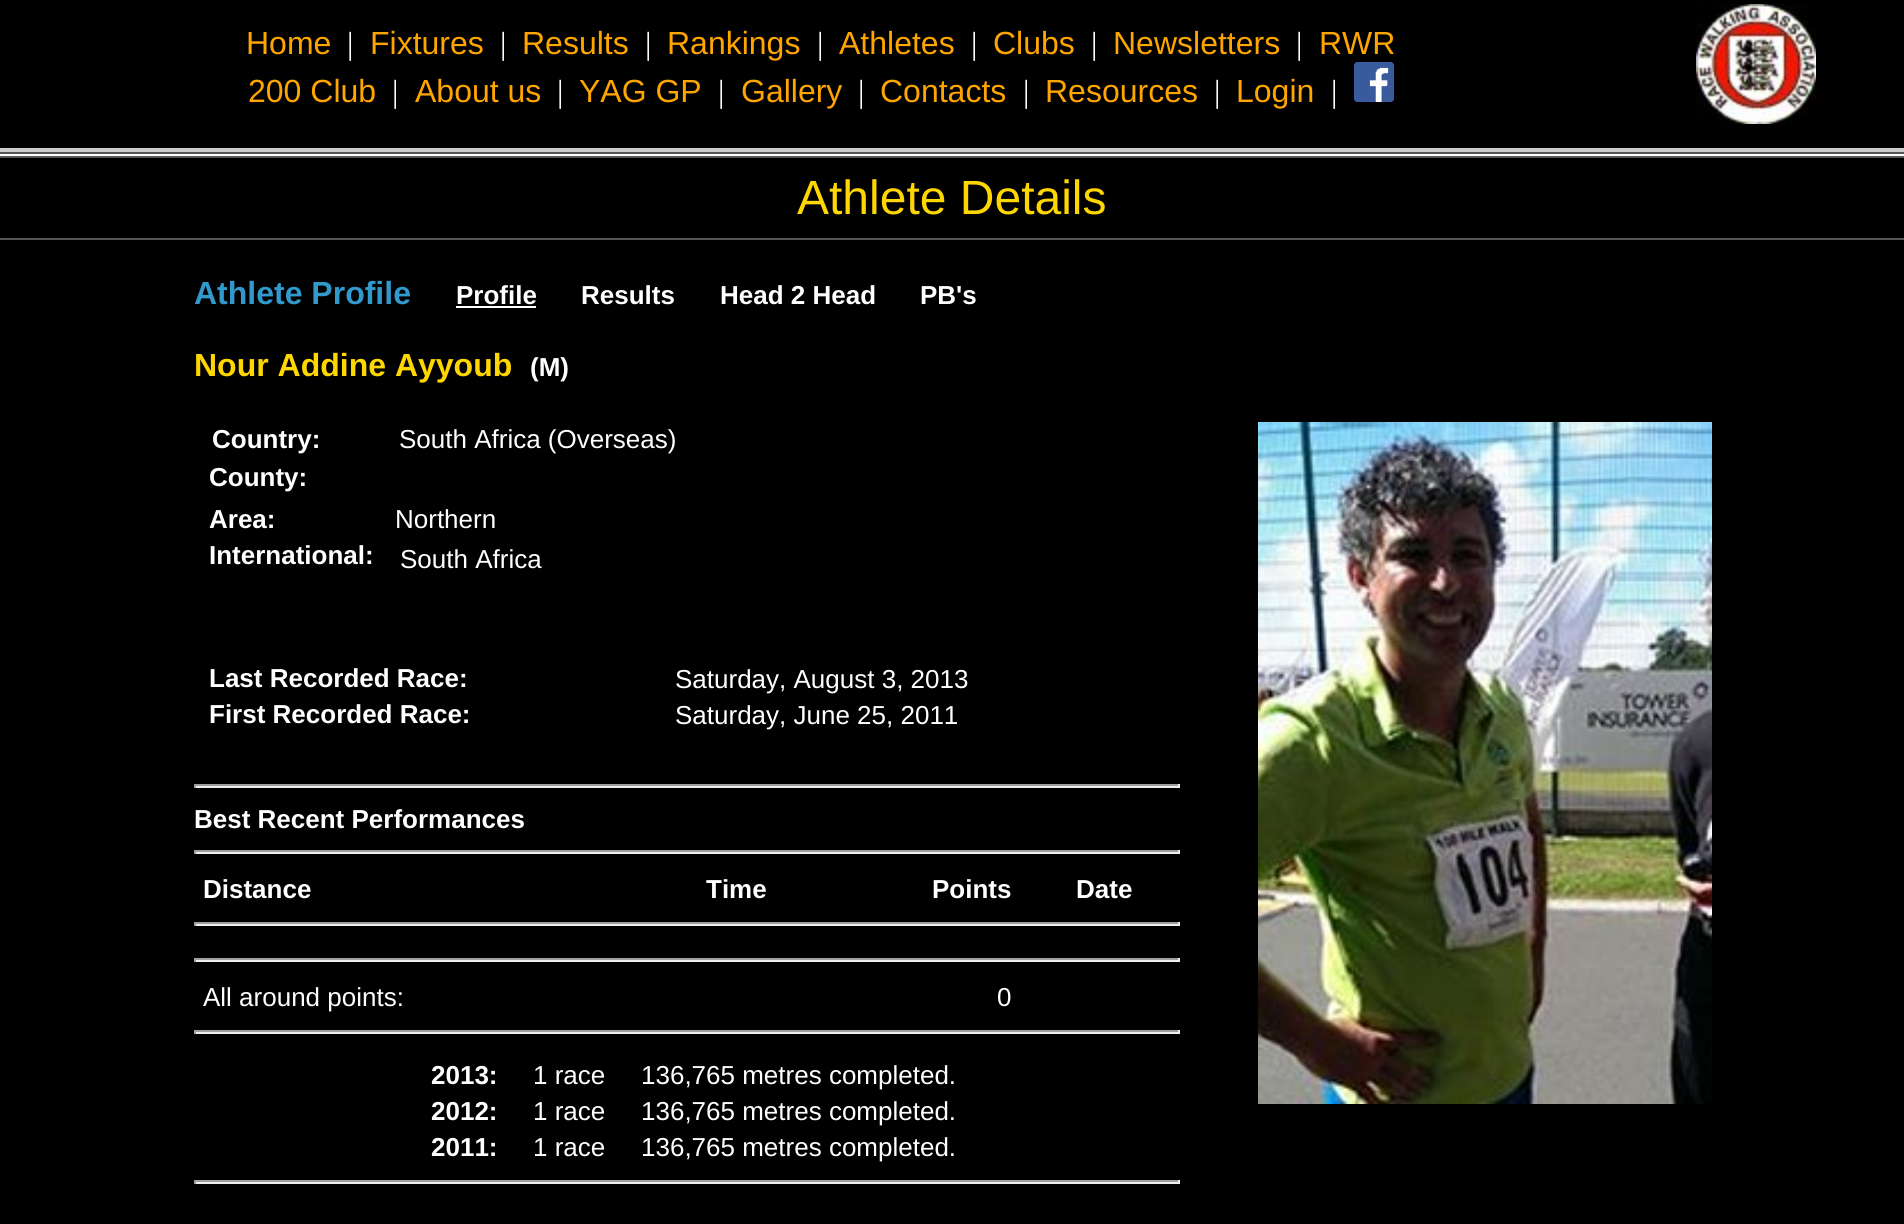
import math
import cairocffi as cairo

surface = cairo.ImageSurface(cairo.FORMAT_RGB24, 1904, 1224)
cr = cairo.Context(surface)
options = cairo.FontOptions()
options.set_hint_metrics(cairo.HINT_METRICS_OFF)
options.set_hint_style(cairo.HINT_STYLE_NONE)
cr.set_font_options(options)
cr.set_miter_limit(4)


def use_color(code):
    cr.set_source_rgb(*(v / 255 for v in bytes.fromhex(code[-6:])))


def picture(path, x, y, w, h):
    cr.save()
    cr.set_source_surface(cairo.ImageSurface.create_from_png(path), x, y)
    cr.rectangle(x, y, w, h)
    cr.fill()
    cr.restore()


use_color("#000000")
cr.paint()
cr.select_font_face("Liberation Sans")
cr.set_font_size(32)
use_color("#ffa500")
cr.move_to(246, 54)
cr.show_text("Home")
cr.select_font_face("Liberation Serif")
use_color("#ffffff")
cr.move_to(347, 54)
cr.show_text("|")
cr.select_font_face("Liberation Sans")
use_color("#ffa500")
cr.move_to(370, 54)
cr.show_text("Fixtures")
cr.select_font_face("Liberation Serif")
use_color("#ffffff")
cr.move_to(500, 54)
cr.show_text("|")
cr.select_font_face("Liberation Sans")
use_color("#ffa500")
cr.move_to(522, 54)
cr.show_text("Results")
cr.select_font_face("Liberation Serif")
use_color("#ffffff")
cr.move_to(645, 54)
cr.show_text("|")
cr.select_font_face("Liberation Sans")
use_color("#ffa500")
cr.move_to(667, 54)
cr.show_text("Rankings")
cr.select_font_face("Liberation Serif")
use_color("#ffffff")
cr.move_to(817, 54)
cr.show_text("|")
cr.select_font_face("Liberation Sans")
use_color("#ffa500")
cr.move_to(839, 54)
cr.show_text("Athletes")
cr.select_font_face("Liberation Serif")
use_color("#ffffff")
cr.move_to(971, 54)
cr.show_text("|")
cr.select_font_face("Liberation Sans")
use_color("#ffa500")
cr.move_to(993, 54)
cr.show_text("Clubs")
cr.select_font_face("Liberation Serif")
use_color("#ffffff")
cr.move_to(1091, 54)
cr.show_text("|")
cr.select_font_face("Liberation Sans")
use_color("#ffa500")
cr.move_to(1113, 54)
cr.show_text("Newsletters")
cr.select_font_face("Liberation Serif")
use_color("#ffffff")
cr.move_to(1296, 54)
cr.show_text("|")
cr.select_font_face("Liberation Sans")
use_color("#ffa500")
cr.move_to(1319, 54)
cr.show_text("RWR")
cr.move_to(248, 102)
cr.show_text("200 Club")
cr.select_font_face("Liberation Serif")
use_color("#ffffff")
cr.move_to(392, 102)
cr.show_text("|")
cr.select_font_face("Liberation Sans")
use_color("#ffa500")
cr.move_to(415, 102)
cr.show_text("About us")
cr.select_font_face("Liberation Serif")
use_color("#ffffff")
cr.move_to(557, 102)
cr.show_text("|")
cr.select_font_face("Liberation Sans")
use_color("#ffa500")
cr.move_to(579, 102)
cr.show_text("YAG GP")
cr.select_font_face("Liberation Serif")
use_color("#ffffff")
cr.move_to(718, 102)
cr.show_text("|")
cr.select_font_face("Liberation Sans")
use_color("#ffa500")
cr.move_to(741, 102)
cr.show_text("Gallery")
cr.select_font_face("Liberation Serif")
use_color("#ffffff")
cr.move_to(858, 102)
cr.show_text("|")
cr.select_font_face("Liberation Sans")
use_color("#ffa500")
cr.move_to(880, 102)
cr.show_text("Contacts")
cr.select_font_face("Liberation Serif")
use_color("#ffffff")
cr.move_to(1023, 102)
cr.show_text("|")
cr.select_font_face("Liberation Sans")
use_color("#ffa500")
cr.move_to(1045, 102)
cr.show_text("Resources")
cr.select_font_face("Liberation Serif")
use_color("#ffffff")
cr.move_to(1214, 102)
cr.show_text("|")
cr.select_font_face("Liberation Sans")
use_color("#ffa500")
cr.move_to(1236, 102)
cr.show_text("Login")
cr.select_font_face("Liberation Serif")
use_color("#ffffff")
cr.move_to(1331, 102)
cr.show_text("|")
picture("img1.png", 1354, 62, 40, 40)
picture("img2.png", 1696, 4, 120, 120)
use_color("#cccccc")
cr.rectangle(0, 148, 1904, 4)
cr.fill()
use_color("#555555")
cr.rectangle(0, 152, 1904, 2)
cr.fill()
use_color("#ffffff")
cr.rectangle(0, 154, 1904, 2)
cr.fill()
use_color("#555555")
cr.rectangle(0, 156, 1904, 2)
cr.fill()
cr.select_font_face("Liberation Sans")
cr.set_font_size(48)
use_color("#ffd700")
cr.move_to(797, 214)
cr.show_text("Athlete Details")
use_color("#555555")
cr.rectangle(0, 238, 1904, 2)
cr.fill()
cr.select_font_face("Liberation Sans", cairo.FONT_SLANT_NORMAL, cairo.FONT_WEIGHT_BOLD)
cr.set_font_size(32)
use_color("#3199cb")
cr.move_to(194, 304)
cr.show_text("Athlete Profile")
cr.set_font_size(26)
use_color("#ffffff")
cr.move_to(456, 304)
cr.show_text("Profile")
cr.rectangle(456, 306, 80, 2)
cr.fill()
cr.move_to(581, 304)
cr.show_text("Results")
cr.move_to(720, 304)
cr.show_text("Head 2 Head")
cr.move_to(920, 304)
cr.show_text("PB's")
cr.set_font_size(32)
use_color("#ffd700")
cr.move_to(194, 376)
cr.show_text("Nour Addine Ayyoub")
cr.set_font_size(26)
use_color("#ffffff")
cr.move_to(530, 376)
cr.show_text("(M)")
cr.move_to(212, 448)
cr.show_text("Country:")
cr.select_font_face("Liberation Sans")
cr.move_to(399, 448)
cr.show_text("South Africa (Overseas)")
cr.select_font_face("Liberation Sans", cairo.FONT_SLANT_NORMAL, cairo.FONT_WEIGHT_BOLD)
cr.move_to(209, 486)
cr.show_text("County:")
cr.move_to(209, 528)
cr.show_text("Area:")
cr.select_font_face("Liberation Sans")
cr.move_to(395, 528)
cr.show_text("Northern")
cr.select_font_face("Liberation Sans", cairo.FONT_SLANT_NORMAL, cairo.FONT_WEIGHT_BOLD)
cr.move_to(209, 564)
cr.show_text("International:")
cr.select_font_face("Liberation Sans")
cr.move_to(400, 568)
cr.show_text("South Africa")
cr.select_font_face("Liberation Sans", cairo.FONT_SLANT_NORMAL, cairo.FONT_WEIGHT_BOLD)
cr.move_to(209, 687)
cr.show_text("Last Recorded Race:")
cr.select_font_face("Liberation Sans")
cr.move_to(675, 688)
cr.show_text("Saturday, August 3, 2013")
cr.select_font_face("Liberation Sans", cairo.FONT_SLANT_NORMAL, cairo.FONT_WEIGHT_BOLD)
cr.move_to(209, 723)
cr.show_text("First Recorded Race:")
cr.select_font_face("Liberation Sans")
cr.move_to(675, 724)
cr.show_text("Saturday, June 25, 2011")
use_color("#9f9f9f")
cr.rectangle(194, 784, 986, 2)
cr.fill()
use_color("#eeeeee")
cr.rectangle(1178, 784, 2, 4)
cr.fill()
cr.rectangle(194, 786, 986, 2)
cr.fill()
use_color("#9f9f9f")
cr.rectangle(194, 784, 2, 4)
cr.fill()
cr.select_font_face("Liberation Sans", cairo.FONT_SLANT_NORMAL, cairo.FONT_WEIGHT_BOLD)
use_color("#ffffff")
cr.move_to(194, 828)
cr.show_text("Best Recent Performances")
use_color("#9f9f9f")
cr.rectangle(194, 850, 986, 2)
cr.fill()
use_color("#eeeeee")
cr.rectangle(1178, 850, 2, 4)
cr.fill()
cr.rectangle(194, 852, 986, 2)
cr.fill()
use_color("#9f9f9f")
cr.rectangle(194, 850, 2, 4)
cr.fill()
use_color("#ffffff")
cr.move_to(203, 898)
cr.show_text("Distance")
cr.move_to(706, 898)
cr.show_text("Time")
cr.move_to(932, 898)
cr.show_text("Points")
cr.move_to(1076, 898)
cr.show_text("Date")
use_color("#9f9f9f")
cr.rectangle(194, 922, 986, 2)
cr.fill()
use_color("#eeeeee")
cr.rectangle(1178, 922, 2, 4)
cr.fill()
cr.rectangle(194, 924, 986, 2)
cr.fill()
use_color("#9f9f9f")
cr.rectangle(194, 922, 2, 4)
cr.fill()
cr.rectangle(194, 958, 986, 2)
cr.fill()
use_color("#eeeeee")
cr.rectangle(1178, 958, 2, 4)
cr.fill()
cr.rectangle(194, 960, 986, 2)
cr.fill()
use_color("#9f9f9f")
cr.rectangle(194, 958, 2, 4)
cr.fill()
cr.select_font_face("Liberation Sans")
use_color("#ffffff")
cr.move_to(203, 1006)
cr.show_text("All around points:")
cr.move_to(997, 1006)
cr.show_text("0")
use_color("#9f9f9f")
cr.rectangle(194, 1030, 986, 2)
cr.fill()
use_color("#eeeeee")
cr.rectangle(1178, 1030, 2, 4)
cr.fill()
cr.rectangle(194, 1032, 986, 2)
cr.fill()
use_color("#9f9f9f")
cr.rectangle(194, 1030, 2, 4)
cr.fill()
cr.select_font_face("Liberation Sans", cairo.FONT_SLANT_NORMAL, cairo.FONT_WEIGHT_BOLD)
use_color("#ffffff")
cr.move_to(431, 1084)
cr.show_text("2013:")
cr.select_font_face("Liberation Sans")
cr.move_to(533, 1084)
cr.show_text("1 race")
cr.move_to(641, 1084)
cr.show_text("136,765 metres completed.")
cr.select_font_face("Liberation Sans", cairo.FONT_SLANT_NORMAL, cairo.FONT_WEIGHT_BOLD)
cr.move_to(431, 1120)
cr.show_text("2012:")
cr.select_font_face("Liberation Sans")
cr.move_to(533, 1120)
cr.show_text("1 race")
cr.move_to(641, 1120)
cr.show_text("136,765 metres completed.")
cr.select_font_face("Liberation Sans", cairo.FONT_SLANT_NORMAL, cairo.FONT_WEIGHT_BOLD)
cr.move_to(431, 1156)
cr.show_text("2011:")
cr.select_font_face("Liberation Sans")
cr.move_to(533, 1156)
cr.show_text("1 race")
cr.move_to(641, 1156)
cr.show_text("136,765 metres completed.")
use_color("#9f9f9f")
cr.rectangle(194, 1180, 986, 2)
cr.fill()
use_color("#eeeeee")
cr.rectangle(1178, 1180, 2, 4)
cr.fill()
cr.rectangle(194, 1182, 986, 2)
cr.fill()
use_color("#9f9f9f")
cr.rectangle(194, 1180, 2, 4)
cr.fill()
picture("img3.png", 1258, 422, 454, 682)
surface.write_to_png("result.png")
